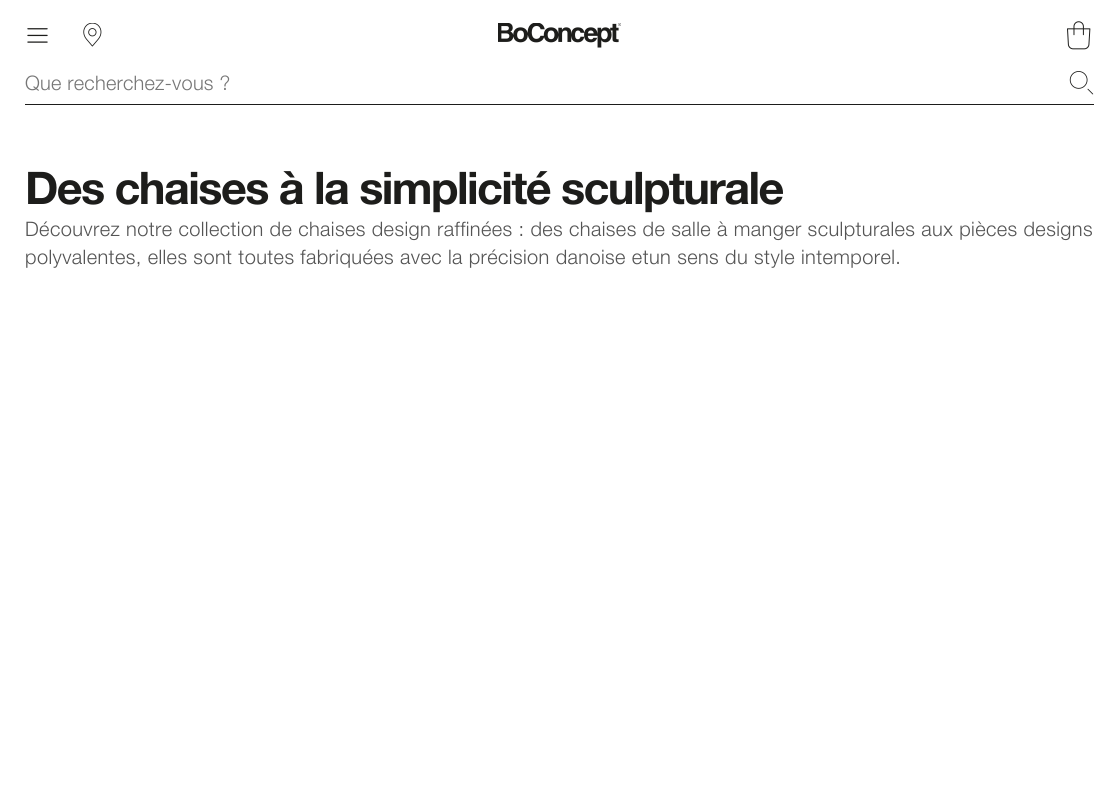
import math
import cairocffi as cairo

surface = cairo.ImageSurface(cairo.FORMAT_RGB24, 1118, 806)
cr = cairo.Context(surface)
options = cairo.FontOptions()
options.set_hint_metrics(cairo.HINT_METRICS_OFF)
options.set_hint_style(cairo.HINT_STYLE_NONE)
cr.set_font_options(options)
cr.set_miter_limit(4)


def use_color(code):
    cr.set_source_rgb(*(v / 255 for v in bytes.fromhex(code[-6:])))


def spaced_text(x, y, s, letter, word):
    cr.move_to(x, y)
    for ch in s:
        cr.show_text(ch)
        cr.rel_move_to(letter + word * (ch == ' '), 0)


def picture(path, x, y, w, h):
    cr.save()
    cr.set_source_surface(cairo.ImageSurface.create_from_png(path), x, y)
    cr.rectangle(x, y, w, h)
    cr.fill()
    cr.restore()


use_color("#ffffff")
cr.paint()
picture("img1.png", 27, 28, 21, 15)
picture("img2.png", 83, 23, 19, 24)
picture("img3.png", 498, 23, 123, 25)
picture("img4.png", 1067, 21, 24, 29)
use_color("#1d1d1b")
cr.rectangle(25, 104, 1069, 1)
cr.fill()
cr.select_font_face("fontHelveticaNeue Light")
cr.set_font_size(20)
use_color("#767676")
spaced_text(25, 90, "Que recherchez-vous ?", 0.2, 0)
picture("img5.png", 1069, 71, 25, 24)
cr.select_font_face("Helvetica Neue", cairo.FONT_SLANT_NORMAL, cairo.FONT_WEIGHT_BOLD)
cr.set_font_size(45)
use_color("#1d1d1b")
spaced_text(25, 204, "Des chaises à la simplicité sculpturale", -1.55, 0)
cr.select_font_face("fontHelveticaNeue Light")
cr.set_font_size(20)
use_color("#545454")
spaced_text(25, 236, "Découvrez notre collection de chaises design raffinées : des chaises de salle à manger sculpturales aux pièces designs", 0.4, 0)
spaced_text(25, 264, "polyvalentes, elles sont toutes fabriquées avec la précision danoise etun sens du style intemporel.", 0.4, 0)
surface.write_to_png("result.png")
